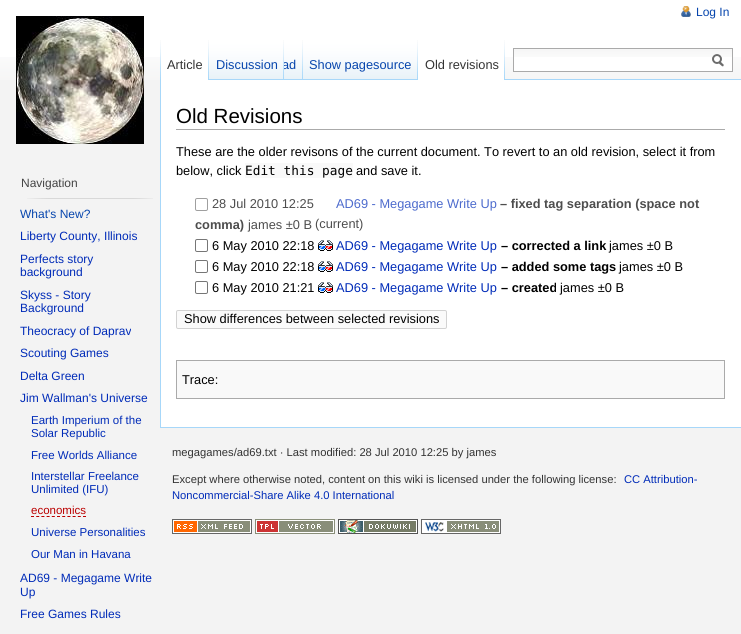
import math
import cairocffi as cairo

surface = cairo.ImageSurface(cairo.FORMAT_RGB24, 741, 634)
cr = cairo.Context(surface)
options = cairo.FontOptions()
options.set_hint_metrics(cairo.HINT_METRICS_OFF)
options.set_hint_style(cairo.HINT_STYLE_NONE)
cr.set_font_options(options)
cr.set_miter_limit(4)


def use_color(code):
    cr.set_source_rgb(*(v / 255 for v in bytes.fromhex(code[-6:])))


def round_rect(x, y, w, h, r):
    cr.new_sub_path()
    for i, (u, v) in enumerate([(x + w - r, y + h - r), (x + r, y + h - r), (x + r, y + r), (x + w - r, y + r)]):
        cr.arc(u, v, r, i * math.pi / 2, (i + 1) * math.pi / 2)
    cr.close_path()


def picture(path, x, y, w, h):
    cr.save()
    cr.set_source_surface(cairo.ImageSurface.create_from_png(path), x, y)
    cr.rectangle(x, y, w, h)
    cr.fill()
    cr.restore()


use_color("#f3f3f3")
cr.paint()
use_color("#ffffff")
cr.rectangle(0, 0, 741, 57)
cr.fill()
picture("img1.png", 0, 57, 741, 23)
picture("img2.png", 681, 6, 10, 11)
cr.select_font_face("Liberation Sans")
cr.set_font_size(12)
use_color("#0645ad")
cr.move_to(696, 16)
cr.show_text("Log In")
picture("img3.png", 160, 40, 1, 39)
use_color("#a7d7f9")
cr.rectangle(160, 79, 581, 1)
cr.fill()
use_color("#ffffff")
cr.rectangle(161, 57, 47, 23)
cr.fill()
picture("img4.png", 208, 40, 1, 40)
cr.set_font_size(12.8)
use_color("#333333")
cr.move_to(167, 69)
cr.show_text("Article")
picture("img6.png", 284, 40, 19, 40)
use_color("#0645ad")
cr.move_to(282, 69)
cr.show_text("ad")
picture("img5.png", 209, 40, 75, 40)
picture("img3.png", 283, 40, 1, 39)
cr.move_to(216, 69)
cr.show_text("Discussion")
picture("img3.png", 302, 40, 1, 39)
picture("img7.png", 303, 40, 115, 40)
picture("img3.png", 417, 40, 1, 39)
cr.move_to(309, 69)
cr.show_text("Show pagesource")
use_color("#ffffff")
cr.rectangle(418, 57, 86, 23)
cr.fill()
picture("img4.png", 504, 40, 1, 40)
use_color("#333333")
cr.move_to(425, 69)
cr.show_text("Old revisions")
use_color("#ffffff")
cr.rectangle(514, 57, 218, 14)
cr.fill()
picture("img8.png", 514, 49, 218, 8)
cr.rectangle(513.5, 48.5, 219, 23)
use_color("#aaaaaa")
cr.set_line_width(1)
cr.stroke()
picture("img9.png", 712, 54, 12, 13)
picture("img10.png", 16, 16, 128, 128)
cr.set_font_size(12)
use_color("#444444")
cr.move_to(21, 187)
cr.show_text("Navigation")
picture("img11.png", 27, 198, 126, 1)
use_color("#0645ad")
cr.move_to(20, 218)
cr.show_text("What's New?")
use_color("#002bb8")
cr.move_to(20, 240)
cr.show_text("Liberty County, Illinois")
cr.move_to(20, 263)
cr.show_text("Perfects story")
cr.move_to(20, 276)
cr.show_text("background")
cr.move_to(20, 299)
cr.show_text("Skyss - Story")
cr.move_to(20, 312)
cr.show_text("Background")
cr.move_to(20, 335)
cr.show_text("Theocracy of Daprav")
cr.move_to(20, 357)
cr.show_text("Scouting Games")
cr.move_to(20, 380)
cr.show_text("Delta Green")
cr.move_to(20, 402)
cr.show_text("Jim Wallman's Universe")
cr.set_font_size(11.5)
cr.move_to(31, 424)
cr.show_text("Earth Imperium of the")
cr.move_to(31, 437)
cr.show_text("Solar Republic")
cr.move_to(31, 459)
cr.show_text("Free Worlds Alliance")
cr.move_to(31, 480)
cr.show_text("Interstellar Freelance")
cr.move_to(31, 493)
cr.show_text("Unlimited (IFU)")
use_color("#ba0000")
cr.move_to(31, 514)
cr.show_text("economics")
cr.new_path()
cr.move_to(31, 516.5)
cr.line_to(86, 516.5)
cr.set_dash([3, 2.2])
cr.stroke()
use_color("#002bb8")
cr.move_to(31, 536)
cr.show_text("Universe Personalities")
cr.move_to(31, 558)
cr.show_text("Our Man in Havana")
cr.set_font_size(12)
cr.move_to(20, 582)
cr.show_text("AD69 - Megagame Write")
cr.move_to(20, 596)
cr.show_text("Up")
cr.move_to(20, 618)
cr.show_text("Free Games Rules")
use_color("#ffffff")
cr.rectangle(161, 80, 580, 347)
cr.fill()
use_color("#a7d7f9")
cr.rectangle(160, 80, 1, 347)
cr.fill()
use_color("#aaaaaa")
cr.rectangle(176, 129, 549, 1)
cr.fill()
cr.set_font_size(20.5)
use_color("#000000")
cr.move_to(176, 123)
cr.show_text("Old Revisions")
cr.set_font_size(12.8)
cr.move_to(176, 156)
cr.show_text("These are the older revisons of the current document. To revert to an old revision, select it from")
cr.move_to(176, 175)
cr.show_text("below, click")
use_color("#f9f9f9")
cr.rectangle(245, 163, 108, 15)
cr.fill()
cr.select_font_face("DejaVu Sans Mono")
use_color("#000000")
cr.move_to(245, 175)
cr.show_text("Edit this page")
cr.select_font_face("Liberation Sans")
cr.move_to(356, 175)
cr.show_text("and save it.")
round_rect(195.5, 198.5, 12, 12, 1.5)
use_color("#9f9f9f")
cr.set_dash([])
cr.stroke()
use_color("#4d4d4d")
cr.move_to(212, 208)
cr.show_text("28 Jul 2010 12:25")
use_color("#4d6bcd")
cr.move_to(336, 208)
cr.show_text("AD69 - Megagame Write Up")
cr.select_font_face("Liberation Sans", cairo.FONT_SLANT_NORMAL, cairo.FONT_WEIGHT_BOLD)
use_color("#4d4d4d")
cr.move_to(500, 208)
cr.show_text("– fixed tag separation (space not")
cr.move_to(195, 229)
cr.show_text("comma)")
cr.select_font_face("Liberation Sans")
cr.move_to(248, 229)
cr.show_text("james ±0 B")
cr.move_to(315, 228)
cr.show_text("(current)")
round_rect(195.5, 239.5, 12, 12, 1.5)
use_color("#767676")
cr.stroke()
use_color("#000000")
cr.move_to(212, 250)
cr.show_text("6 May 2010 22:18")
picture("img12.png", 318, 240, 15, 11)
use_color("#002bb8")
cr.move_to(336, 250)
cr.show_text("AD69 - Megagame Write Up")
cr.select_font_face("Liberation Sans", cairo.FONT_SLANT_NORMAL, cairo.FONT_WEIGHT_BOLD)
use_color("#000000")
cr.move_to(501, 250)
cr.show_text("– corrected a link")
cr.select_font_face("Liberation Sans")
cr.move_to(609, 250)
cr.show_text("james ±0 B")
round_rect(195.5, 260.5, 12, 12, 1.5)
use_color("#767676")
cr.stroke()
use_color("#000000")
cr.move_to(212, 271)
cr.show_text("6 May 2010 22:18")
picture("img12.png", 318, 261, 15, 11)
use_color("#002bb8")
cr.move_to(336, 271)
cr.show_text("AD69 - Megagame Write Up")
cr.select_font_face("Liberation Sans", cairo.FONT_SLANT_NORMAL, cairo.FONT_WEIGHT_BOLD)
use_color("#000000")
cr.move_to(501, 271)
cr.show_text("– added some tags")
cr.select_font_face("Liberation Sans")
cr.move_to(619, 271)
cr.show_text("james ±0 B")
round_rect(195.5, 281.5, 12, 12, 1.5)
use_color("#767676")
cr.stroke()
use_color("#000000")
cr.move_to(212, 292)
cr.show_text("6 May 2010 21:21")
picture("img12.png", 318, 282, 15, 11)
use_color("#002bb8")
cr.move_to(336, 292)
cr.show_text("AD69 - Megagame Write Up")
cr.select_font_face("Liberation Sans", cairo.FONT_SLANT_NORMAL, cairo.FONT_WEIGHT_BOLD)
use_color("#000000")
cr.move_to(501, 292)
cr.show_text("– created")
cr.select_font_face("Liberation Sans")
cr.move_to(560, 292)
cr.show_text("james ±0 B")
use_color("#fafafa")
round_rect(176.5, 310.5, 270, 18, 1.5)
cr.fill_preserve()
use_color("#d2d2d2")
cr.stroke()
use_color("#000000")
cr.move_to(184, 323)
cr.show_text("Show differences between selected revisions")
use_color("#f9f9f9")
cr.rectangle(176.5, 360.5, 548, 38)
cr.fill_preserve()
use_color("#aaaaaa")
cr.stroke()
use_color("#000000")
cr.move_to(182, 384)
cr.show_text("Trace:")
use_color("#a7d7f9")
cr.rectangle(160, 427, 581, 1)
cr.fill()
cr.set_font_size(11.2)
use_color("#333333")
cr.move_to(172, 456)
cr.show_text("megagames/ad69.txt · Last modified: 28 Jul 2010 12:25 by james")
cr.move_to(172, 483)
cr.show_text("Except where otherwise noted, content on this wiki is licensed under the following license:")
use_color("#002bb8")
cr.move_to(624, 483)
cr.show_text("CC Attribution-")
cr.move_to(172, 499)
cr.show_text("Noncommercial-Share Alike 4.0 International")
picture("img13.png", 172, 519, 80, 15)
picture("img14.png", 255, 519, 80, 15)
picture("img15.png", 338, 519, 80, 15)
picture("img16.png", 421, 519, 80, 15)
surface.write_to_png("result.png")
